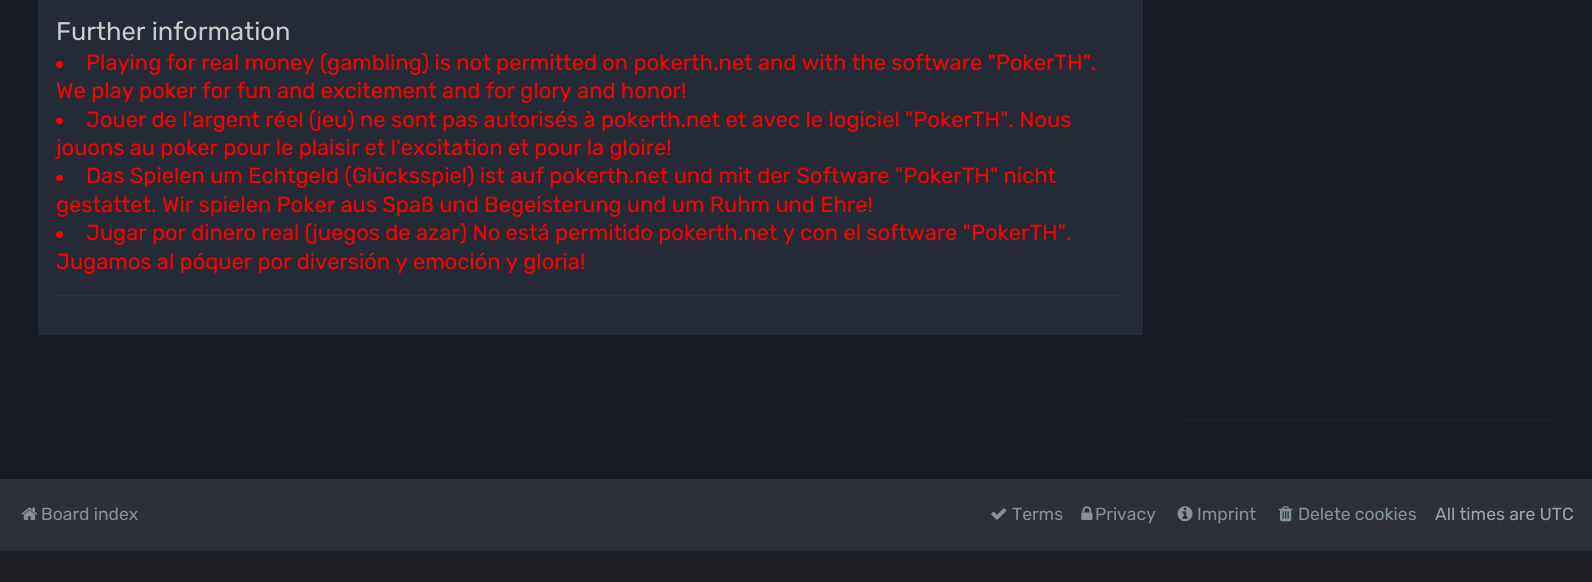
import math
import cairocffi as cairo

surface = cairo.ImageSurface(cairo.FORMAT_RGB24, 1592, 582)
cr = cairo.Context(surface)
options = cairo.FontOptions()
options.set_hint_metrics(cairo.HINT_METRICS_OFF)
options.set_hint_style(cairo.HINT_STYLE_NONE)
cr.set_font_options(options)
cr.set_miter_limit(4)


def use_color(code):
    cr.set_source_rgb(*(v / 255 for v in bytes.fromhex(code[-6:])))


def round_rect(x, y, w, h, r):
    cr.new_sub_path()
    for i, (u, v) in enumerate([(x + w - r, y + h - r), (x + r, y + h - r), (x + r, y + r), (x + w - r, y + r)]):
        cr.arc(u, v, r, i * math.pi / 2, (i + 1) * math.pi / 2)
    cr.close_path()


def picture(path, x, y, w, h):
    cr.save()
    cr.set_source_surface(cairo.ImageSurface.create_from_png(path), x, y)
    cr.rectangle(x, y, w, h)
    cr.fill()
    cr.restore()


use_color("#2d3039")
cr.paint()
use_color("#171b24")
cr.rectangle(0, 0, 1592, 479)
cr.fill()
use_color("#242a36")
cr.rectangle(38, 0, 1105, 335)
cr.fill()
cr.select_font_face("Rubik")
cr.set_font_size(25.5)
use_color("#cccccc")
cr.move_to(56, 40)
cr.show_text("Further information")
use_color("#ff0000")
cr.new_path()
cr.arc(59.5, 64.5, 3.5, 0, 2 * math.pi)
cr.fill()
cr.set_font_size(21.9)
cr.move_to(86, 70)
cr.show_text("Playing for real money (gambling) is not permitted on pokerth.net and with the software \"PokerTH\".")
cr.move_to(56, 98)
cr.show_text("We play poker for fun and excitement and for glory and honor!")
round_rect(56, 118, 7, 6, 3)
cr.fill()
cr.move_to(86, 127)
cr.show_text("Jouer de l'argent réel (jeu) ne sont pas autorisés à pokerth.net et avec le logiciel \"PokerTH\". Nous")
cr.move_to(56, 155)
cr.show_text("jouons au poker pour le plaisir et l'excitation et pour la gloire!")
round_rect(56, 175, 7, 6, 3)
cr.fill()
cr.move_to(86, 183)
cr.show_text("Das Spielen um Echtgeld (Glücksspiel) ist auf pokerth.net und mit der Software \"PokerTH\" nicht")
cr.move_to(56, 212)
cr.show_text("gestattet. Wir spielen Poker aus Spaß und Begeisterung und um Ruhm und Ehre!")
cr.new_path()
cr.arc(59.5, 234.5, 3.5, 0, 2 * math.pi)
cr.fill()
cr.move_to(86, 240)
cr.show_text("Jugar por dinero real (juegos de azar) No está permitido pokerth.net y con el software \"PokerTH\".")
cr.move_to(56, 269)
cr.show_text("Jugamos al póquer por diversión y emoción y gloria!")
use_color("#2d333e")
cr.rectangle(56, 295, 1068, 1)
cr.fill()
use_color("#20242d")
cr.rectangle(1180, 420, 375, 1)
cr.fill()
picture("img1.png", 21, 507, 17, 13)
cr.set_font_size(17.5)
use_color("#859398")
cr.move_to(41, 520)
cr.show_text("Board index")
picture("img2.png", 991, 508, 16, 12)
cr.move_to(1012, 520)
cr.show_text("Terms")
picture("img3.png", 1081, 506, 12, 14)
cr.move_to(1095, 520)
cr.show_text("Privacy")
picture("img4.png", 1177, 506, 16, 16)
cr.move_to(1197, 520)
cr.show_text("Imprint")
picture("img5.png", 1278, 506, 15, 16)
cr.move_to(1298, 520)
cr.show_text("Delete cookies")
use_color("#a4a4a7")
cr.move_to(1435, 520)
cr.show_text("All times are UTC")
use_color("#1d1f25")
cr.rectangle(0, 551, 1592, 31)
cr.fill()
surface.write_to_png("result.png")
